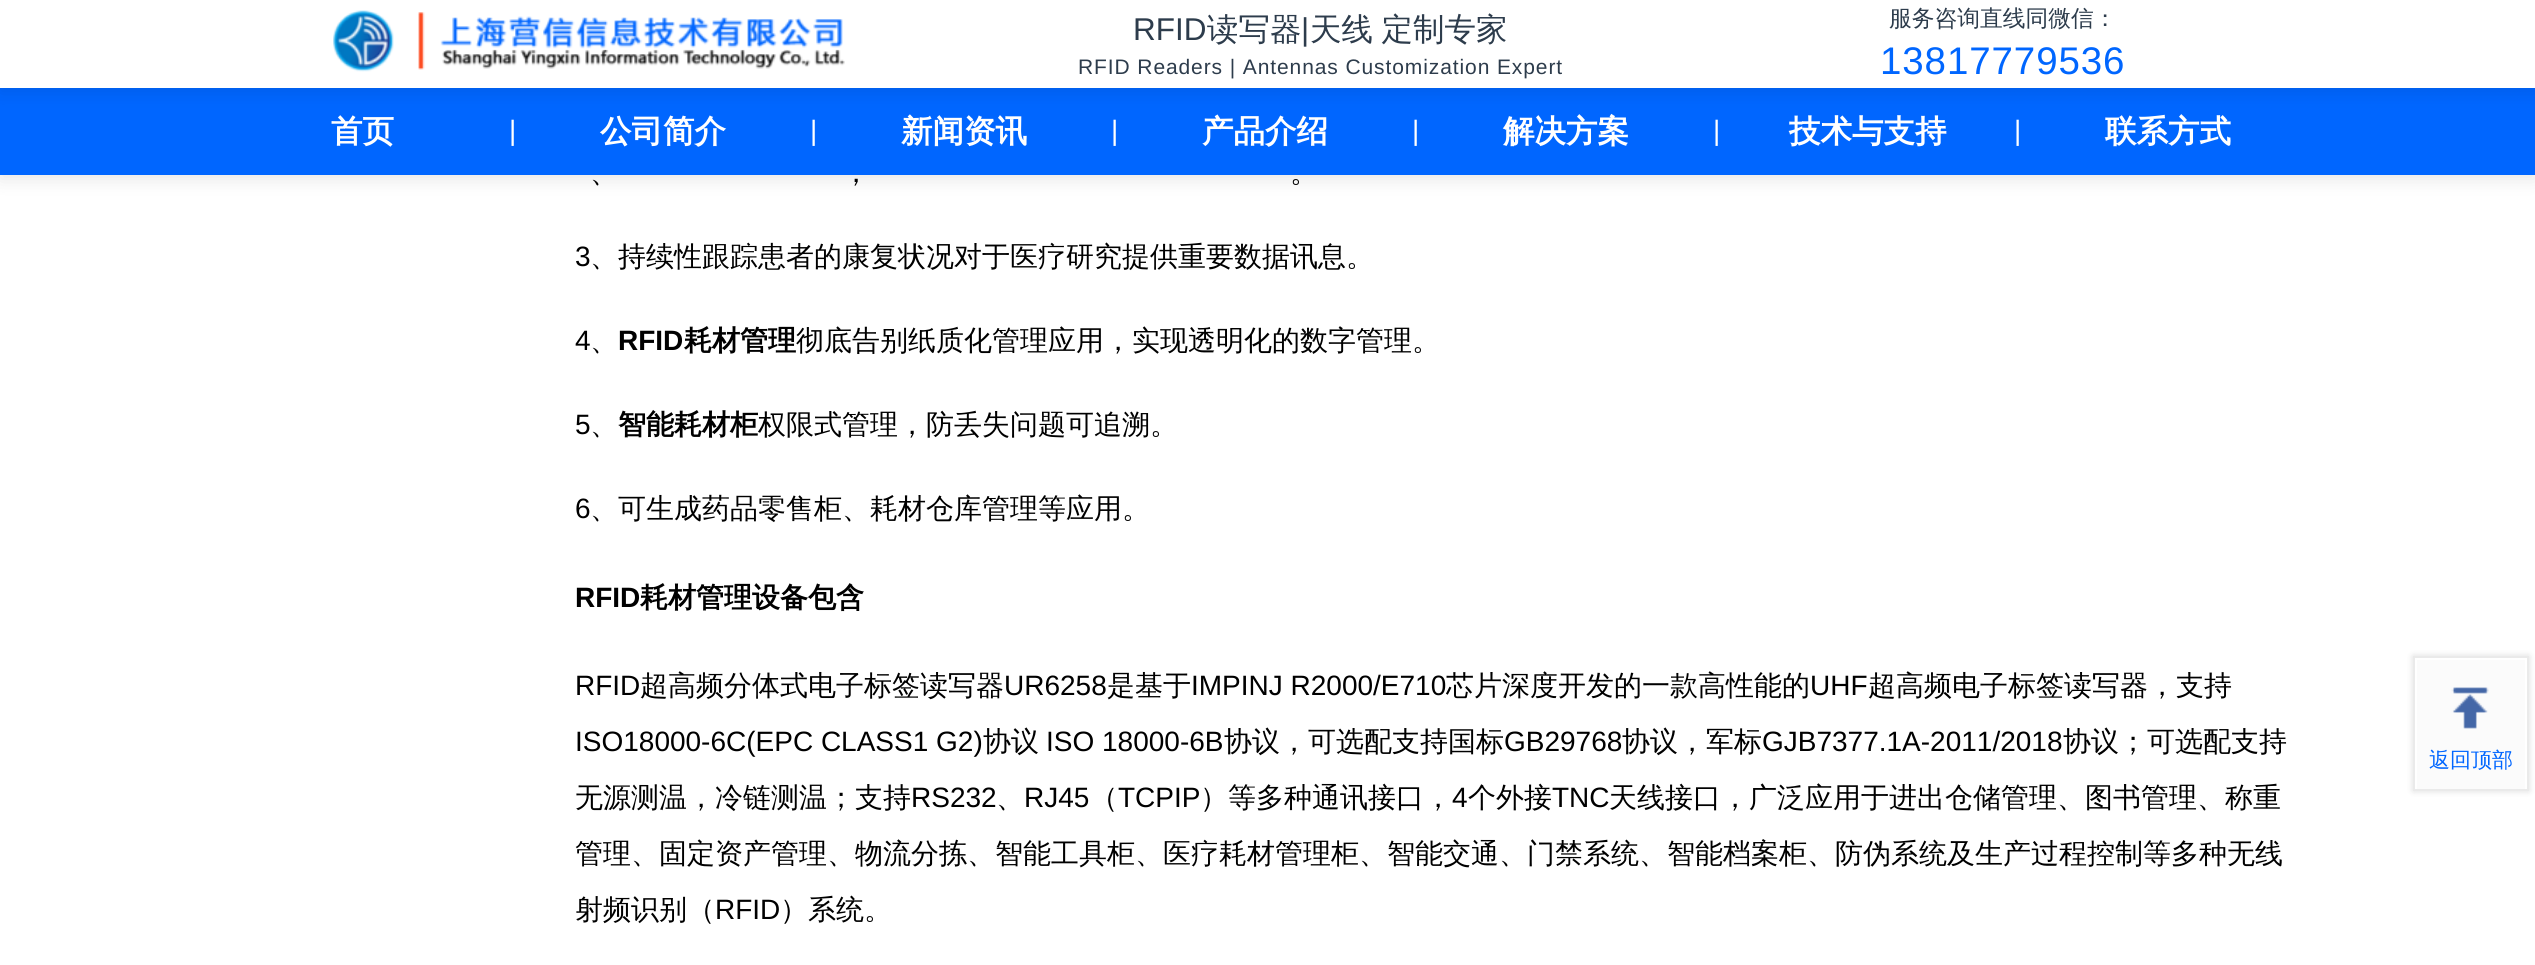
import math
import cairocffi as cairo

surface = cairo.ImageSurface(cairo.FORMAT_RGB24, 2535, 965)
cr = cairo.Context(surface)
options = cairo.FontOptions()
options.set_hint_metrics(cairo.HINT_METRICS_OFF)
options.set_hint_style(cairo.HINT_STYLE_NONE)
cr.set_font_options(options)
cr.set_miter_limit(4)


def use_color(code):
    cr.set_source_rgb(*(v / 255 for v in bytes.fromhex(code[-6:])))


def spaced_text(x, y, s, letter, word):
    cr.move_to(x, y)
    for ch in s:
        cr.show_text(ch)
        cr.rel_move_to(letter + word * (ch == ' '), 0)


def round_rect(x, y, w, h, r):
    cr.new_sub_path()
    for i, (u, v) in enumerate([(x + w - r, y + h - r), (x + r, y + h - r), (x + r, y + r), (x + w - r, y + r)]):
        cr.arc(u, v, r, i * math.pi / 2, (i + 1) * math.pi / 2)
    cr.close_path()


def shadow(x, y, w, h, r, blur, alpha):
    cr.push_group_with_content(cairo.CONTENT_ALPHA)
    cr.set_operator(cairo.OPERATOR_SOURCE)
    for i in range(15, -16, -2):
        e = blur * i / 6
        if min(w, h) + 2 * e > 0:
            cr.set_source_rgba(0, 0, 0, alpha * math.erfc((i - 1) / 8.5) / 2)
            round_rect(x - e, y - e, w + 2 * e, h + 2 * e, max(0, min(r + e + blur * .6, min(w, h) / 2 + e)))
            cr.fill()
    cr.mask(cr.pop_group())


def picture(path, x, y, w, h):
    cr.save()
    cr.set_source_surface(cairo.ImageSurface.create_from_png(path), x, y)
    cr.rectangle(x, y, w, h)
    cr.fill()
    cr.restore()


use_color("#ffffff")
cr.paint()
use_color("#000000")
shadow(0, 91, 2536, 88, 0, 9, 0.1)
use_color("#0066ff")
cr.rectangle(0, 88, 2535, 87)
cr.fill()
use_color("#000000")
shadow(0, 4, 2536, 87, 0, 9, 0.1)
use_color("#ffffff")
cr.rectangle(0, 0, 2535, 88)
cr.fill()
picture("img1.png", 333, 10, 512, 62)
cr.select_font_face("Liberation Sans")
cr.set_font_size(31.5)
use_color("#2d3c4c")
cr.move_to(1133, 40)
cr.show_text("RFID")
cr.select_font_face("WenQuanYi Zen Hei Medium")
cr.move_to(1207, 40)
cr.show_text("读写器")
cr.select_font_face("Liberation Sans")
cr.move_to(1301, 40)
cr.show_text("|")
cr.select_font_face("WenQuanYi Zen Hei Medium")
spaced_text(1310, 40, "天线 定制专家", 0, -1)
cr.select_font_face("Liberation Sans")
cr.set_font_size(21)
spaced_text(1078, 74, "RFID Readers | Antennas Customization Expert", 0.9, 0)
cr.select_font_face("WenQuanYi Zen Hei Medium")
cr.set_font_size(22.75)
cr.move_to(1889, 26)
cr.show_text("服务咨询直线同微信：")
cr.select_font_face("Liberation Sans")
cr.set_font_size(38.5)
use_color("#0066ff")
spaced_text(1880, 74, "13817779536", 0.9, 0)
cr.select_font_face("WenQuanYi Zen Hei", cairo.FONT_SLANT_NORMAL, cairo.FONT_WEIGHT_BOLD)
cr.set_font_size(31.5)
use_color("#ffffff")
cr.move_to(331, 142)
cr.show_text("首页")
cr.select_font_face("Liberation Sans")
cr.set_font_size(28)
cr.move_to(509, 140)
cr.show_text("|")
cr.select_font_face("WenQuanYi Zen Hei", cairo.FONT_SLANT_NORMAL, cairo.FONT_WEIGHT_BOLD)
cr.set_font_size(31.5)
cr.move_to(600, 142)
cr.show_text("公司简介")
cr.select_font_face("Liberation Sans")
cr.set_font_size(28)
cr.move_to(810, 140)
cr.show_text("|")
cr.select_font_face("WenQuanYi Zen Hei", cairo.FONT_SLANT_NORMAL, cairo.FONT_WEIGHT_BOLD)
cr.set_font_size(31.5)
cr.move_to(901, 142)
cr.show_text("新闻资讯")
cr.select_font_face("Liberation Sans")
cr.set_font_size(28)
cr.move_to(1111, 140)
cr.show_text("|")
cr.select_font_face("WenQuanYi Zen Hei", cairo.FONT_SLANT_NORMAL, cairo.FONT_WEIGHT_BOLD)
cr.set_font_size(31.5)
cr.move_to(1202, 142)
cr.show_text("产品介绍")
cr.select_font_face("Liberation Sans")
cr.set_font_size(28)
cr.move_to(1412, 140)
cr.show_text("|")
cr.select_font_face("WenQuanYi Zen Hei", cairo.FONT_SLANT_NORMAL, cairo.FONT_WEIGHT_BOLD)
cr.set_font_size(31.5)
cr.move_to(1503, 142)
cr.show_text("解决方案")
cr.select_font_face("Liberation Sans")
cr.set_font_size(28)
cr.move_to(1713, 140)
cr.show_text("|")
cr.select_font_face("WenQuanYi Zen Hei", cairo.FONT_SLANT_NORMAL, cairo.FONT_WEIGHT_BOLD)
cr.set_font_size(31.5)
cr.move_to(1789, 142)
cr.show_text("技术与支持")
cr.select_font_face("Liberation Sans")
cr.set_font_size(28)
cr.move_to(2014, 140)
cr.show_text("|")
cr.select_font_face("WenQuanYi Zen Hei", cairo.FONT_SLANT_NORMAL, cairo.FONT_WEIGHT_BOLD)
cr.set_font_size(31.5)
cr.move_to(2105, 142)
cr.show_text("联系方式")
cr.select_font_face("WenQuanYi Zen Hei Medium")
cr.set_font_size(28)
use_color("#000000")
cr.move_to(590, 182)
cr.show_text("、")
cr.move_to(842, 182)
cr.show_text("，")
cr.move_to(1290, 182)
cr.show_text("。")
cr.select_font_face("Liberation Sans")
cr.move_to(575, 266)
cr.show_text("3")
cr.select_font_face("WenQuanYi Zen Hei Medium")
cr.move_to(590, 266)
cr.show_text("、持续性跟踪患者的康复状况对于医疗研究提供重要数据讯息。")
cr.select_font_face("Liberation Sans")
cr.move_to(575, 350)
cr.show_text("4")
cr.select_font_face("WenQuanYi Zen Hei Medium")
cr.move_to(590, 350)
cr.show_text("、")
cr.select_font_face("Liberation Sans", cairo.FONT_SLANT_NORMAL, cairo.FONT_WEIGHT_BOLD)
cr.move_to(618, 350)
cr.show_text("RFID")
cr.select_font_face("WenQuanYi Zen Hei", cairo.FONT_SLANT_NORMAL, cairo.FONT_WEIGHT_BOLD)
cr.move_to(684, 350)
cr.show_text("耗材管理")
cr.select_font_face("WenQuanYi Zen Hei Medium")
cr.move_to(796, 350)
cr.show_text("彻底告别纸质化管理应用，实现透明化的数字管理。")
cr.select_font_face("Liberation Sans")
cr.move_to(575, 434)
cr.show_text("5")
cr.select_font_face("WenQuanYi Zen Hei Medium")
cr.move_to(590, 434)
cr.show_text("、")
cr.select_font_face("WenQuanYi Zen Hei", cairo.FONT_SLANT_NORMAL, cairo.FONT_WEIGHT_BOLD)
cr.move_to(618, 434)
cr.show_text("智能耗材柜")
cr.select_font_face("WenQuanYi Zen Hei Medium")
cr.move_to(758, 434)
cr.show_text("权限式管理，防丢失问题可追溯。")
cr.select_font_face("Liberation Sans")
cr.move_to(575, 518)
cr.show_text("6")
cr.select_font_face("WenQuanYi Zen Hei Medium")
cr.move_to(590, 518)
cr.show_text("、可生成药品零售柜、耗材仓库管理等应用。")
cr.select_font_face("Liberation Sans", cairo.FONT_SLANT_NORMAL, cairo.FONT_WEIGHT_BOLD)
cr.move_to(575, 607)
cr.show_text("RFID")
cr.select_font_face("WenQuanYi Zen Hei", cairo.FONT_SLANT_NORMAL, cairo.FONT_WEIGHT_BOLD)
cr.move_to(640, 607)
cr.show_text("耗材管理设备包含")
cr.select_font_face("Liberation Sans")
cr.move_to(575, 695)
cr.show_text("RFID")
cr.select_font_face("WenQuanYi Zen Hei Medium")
cr.move_to(640, 695)
cr.show_text("超高频分体式电子标签读写器")
cr.select_font_face("Liberation Sans")
cr.move_to(1004, 695)
cr.show_text("UR6258")
cr.select_font_face("WenQuanYi Zen Hei Medium")
cr.move_to(1107, 695)
cr.show_text("是基于")
cr.select_font_face("Liberation Sans")
cr.move_to(1191, 695)
cr.show_text("IMPINJ R2000/E710")
cr.select_font_face("WenQuanYi Zen Hei Medium")
cr.move_to(1446, 695)
cr.show_text("芯片深度开发的一款高性能的")
cr.select_font_face("Liberation Sans")
cr.move_to(1810, 695)
cr.show_text("UHF")
cr.select_font_face("WenQuanYi Zen Hei Medium")
cr.move_to(1868, 695)
cr.show_text("超高频电子标签读写器，支持")
cr.select_font_face("Liberation Sans")
cr.move_to(575, 751)
cr.show_text("ISO18000-6C(EPC CLASS1 G2)")
cr.select_font_face("WenQuanYi Zen Hei Medium")
cr.move_to(983, 751)
cr.show_text("协议")
cr.select_font_face("Liberation Sans")
cr.move_to(1046, 751)
cr.show_text("ISO 18000-6B")
cr.select_font_face("WenQuanYi Zen Hei Medium")
cr.move_to(1224, 751)
cr.show_text("协议，可选配支持国标")
cr.select_font_face("Liberation Sans")
cr.move_to(1504, 751)
cr.show_text("GB29768")
cr.select_font_face("WenQuanYi Zen Hei Medium")
cr.move_to(1622, 751)
cr.show_text("协议，军标")
cr.select_font_face("Liberation Sans")
cr.move_to(1762, 751)
cr.show_text("GJB7377.1A-2011/2018")
cr.select_font_face("WenQuanYi Zen Hei Medium")
cr.move_to(2063, 751)
cr.show_text("协议；可选配支持")
cr.move_to(575, 807)
cr.show_text("无源测温，冷链测温；支持")
cr.select_font_face("Liberation Sans")
cr.move_to(911, 807)
cr.show_text("RS232")
cr.select_font_face("WenQuanYi Zen Hei Medium")
cr.move_to(996, 807)
cr.show_text("、")
cr.select_font_face("Liberation Sans")
cr.move_to(1024, 807)
cr.show_text("RJ45")
cr.select_font_face("WenQuanYi Zen Hei Medium")
cr.move_to(1090, 807)
cr.show_text("（")
cr.select_font_face("Liberation Sans")
cr.move_to(1118, 807)
cr.show_text("TCPIP")
cr.select_font_face("WenQuanYi Zen Hei Medium")
cr.move_to(1200, 807)
cr.show_text("）等多种通讯接口，")
cr.select_font_face("Liberation Sans")
cr.move_to(1452, 807)
cr.show_text("4")
cr.select_font_face("WenQuanYi Zen Hei Medium")
cr.move_to(1468, 807)
cr.show_text("个外接")
cr.select_font_face("Liberation Sans")
cr.move_to(1552, 807)
cr.show_text("TNC")
cr.select_font_face("WenQuanYi Zen Hei Medium")
cr.move_to(1609, 807)
cr.show_text("天线接口，广泛应用于进出仓储管理、图书管理、称重")
cr.move_to(575, 863)
cr.show_text("管理、固定资产管理、物流分拣、智能工具柜、医疗耗材管理柜、智能交通、门禁系统、智能档案柜、防伪系统及生产过程控制等多种无线")
cr.move_to(575, 919)
cr.show_text("射频识别（")
cr.select_font_face("Liberation Sans")
cr.move_to(715, 919)
cr.show_text("RFID")
cr.select_font_face("WenQuanYi Zen Hei Medium")
cr.move_to(780, 919)
cr.show_text("）系统。")
use_color("#000000")
shadow(2413, 656, 116, 135, 0, 3.5, 0.14)
use_color("#fbfbfb")
cr.rectangle(2417, 660, 108, 129)
cr.fill()
cr.rectangle(2414, 657, 114, 133)
use_color("#eaeaea")
cr.stroke()
use_color("#ffffff")
cr.rectangle(2415, 658, 112, 2)
cr.fill()
cr.rectangle(2525, 658, 2, 131)
cr.fill()
cr.rectangle(2415, 658, 2, 131)
cr.fill()
picture("img2.png", 2451, 687, 38, 42)
cr.set_font_size(21)
use_color("#0066ff")
cr.move_to(2429, 767)
cr.show_text("返回顶部")
surface.write_to_png("result.png")
